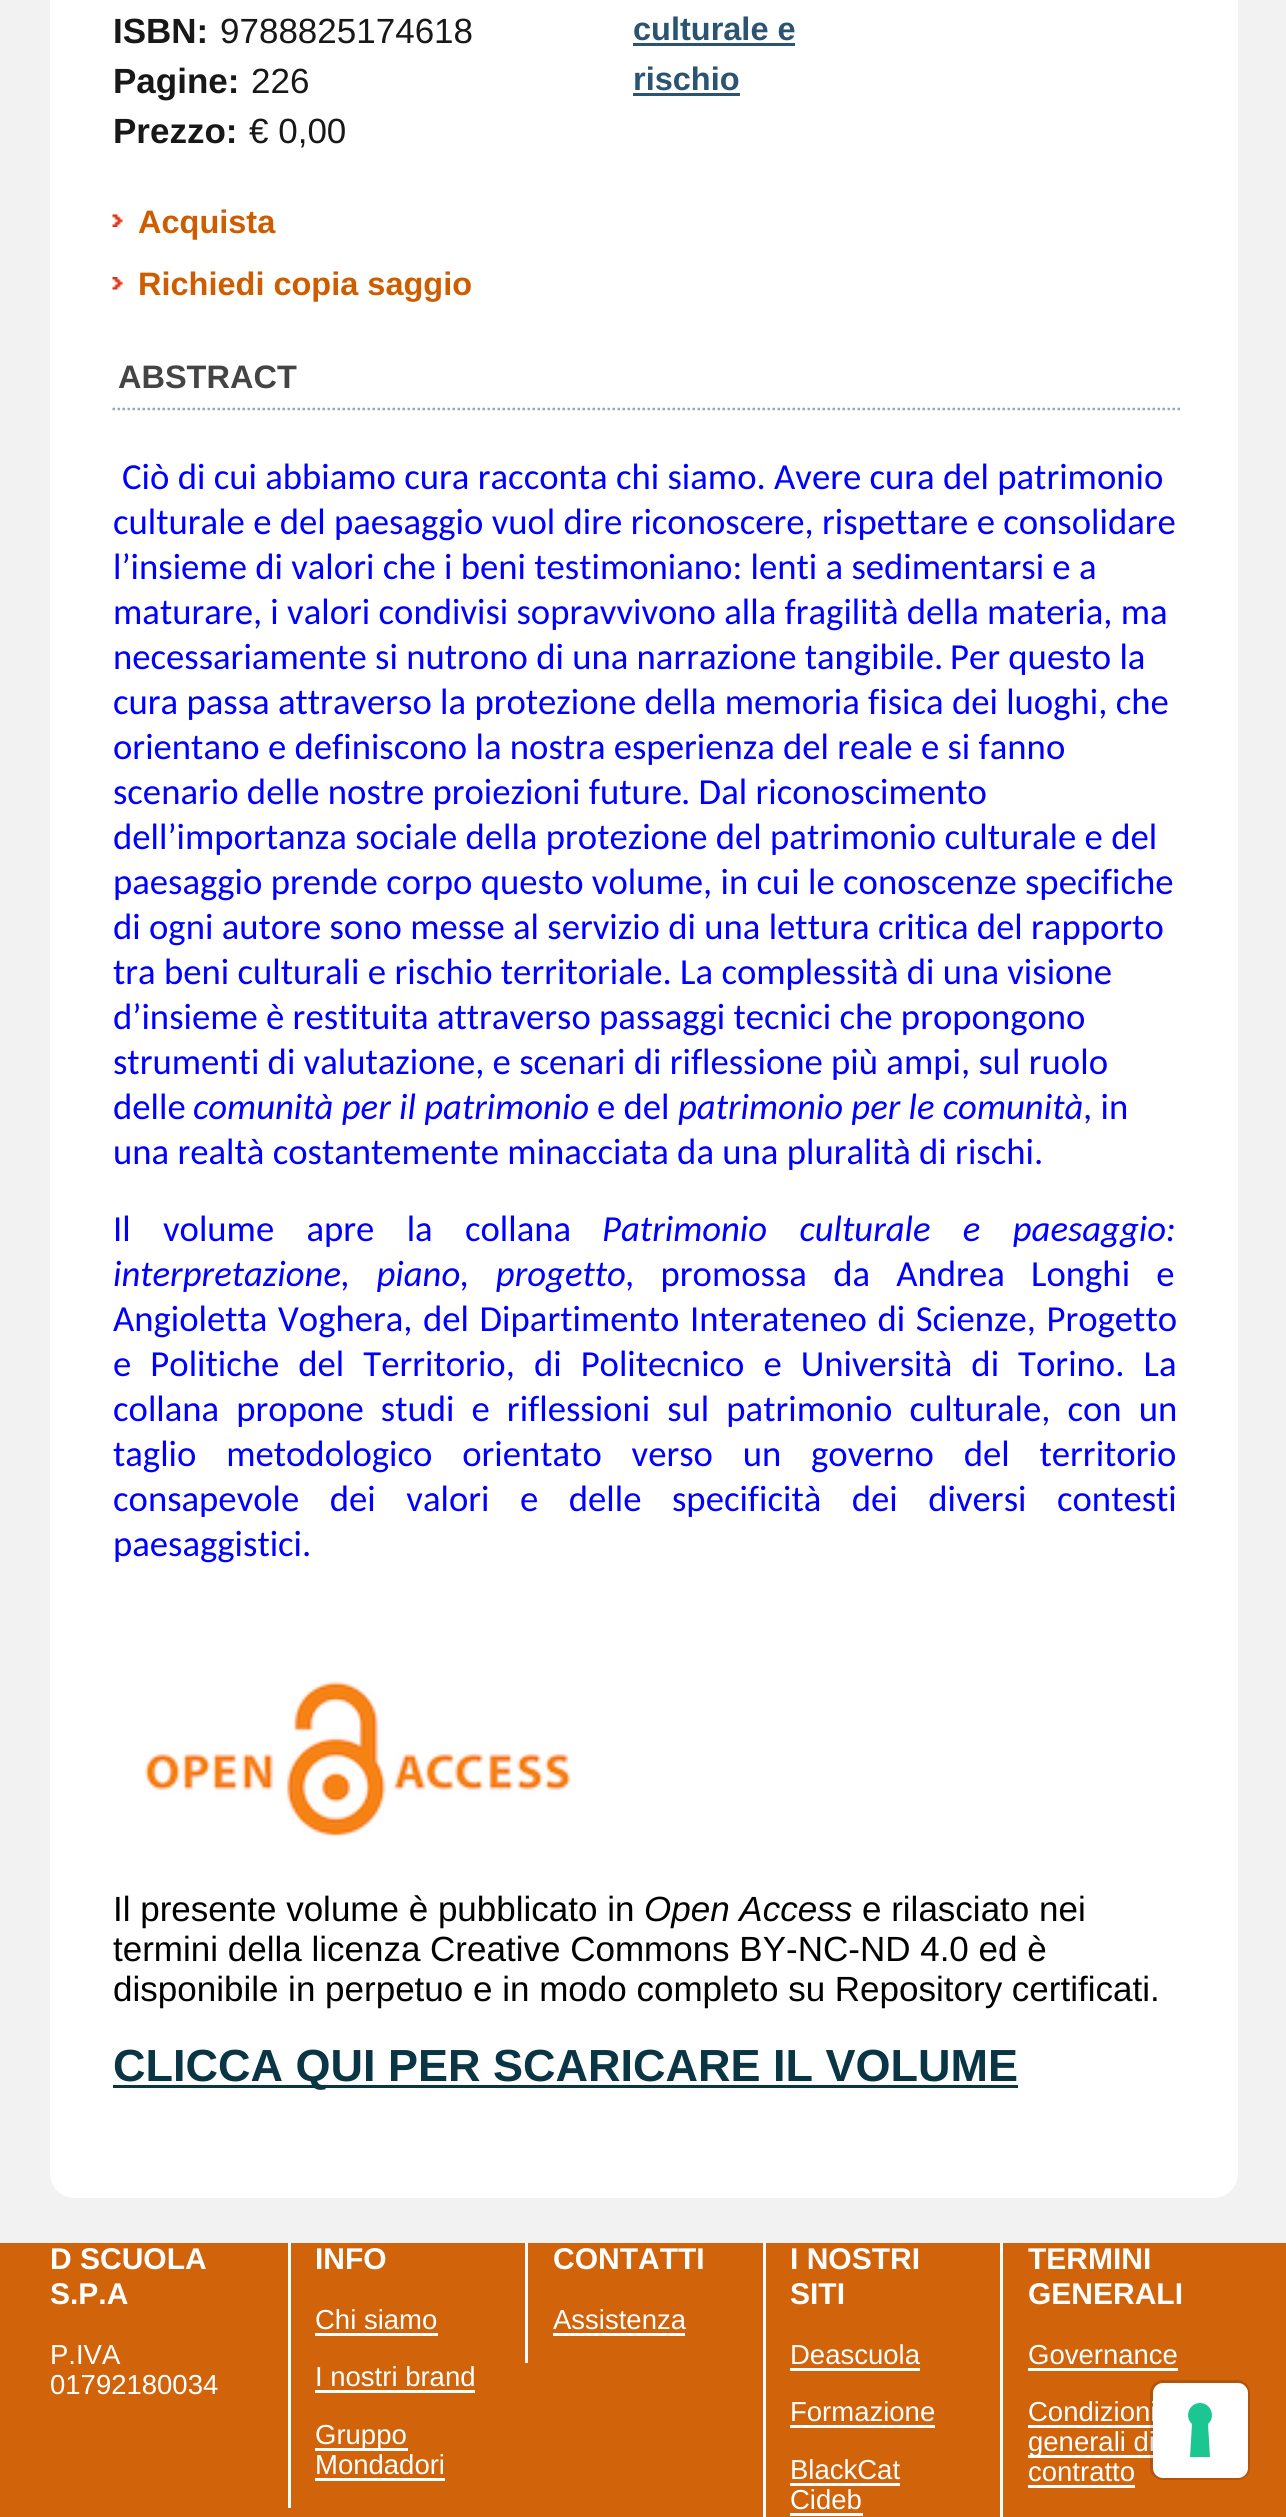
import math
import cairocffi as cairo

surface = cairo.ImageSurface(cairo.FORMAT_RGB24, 1286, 2517)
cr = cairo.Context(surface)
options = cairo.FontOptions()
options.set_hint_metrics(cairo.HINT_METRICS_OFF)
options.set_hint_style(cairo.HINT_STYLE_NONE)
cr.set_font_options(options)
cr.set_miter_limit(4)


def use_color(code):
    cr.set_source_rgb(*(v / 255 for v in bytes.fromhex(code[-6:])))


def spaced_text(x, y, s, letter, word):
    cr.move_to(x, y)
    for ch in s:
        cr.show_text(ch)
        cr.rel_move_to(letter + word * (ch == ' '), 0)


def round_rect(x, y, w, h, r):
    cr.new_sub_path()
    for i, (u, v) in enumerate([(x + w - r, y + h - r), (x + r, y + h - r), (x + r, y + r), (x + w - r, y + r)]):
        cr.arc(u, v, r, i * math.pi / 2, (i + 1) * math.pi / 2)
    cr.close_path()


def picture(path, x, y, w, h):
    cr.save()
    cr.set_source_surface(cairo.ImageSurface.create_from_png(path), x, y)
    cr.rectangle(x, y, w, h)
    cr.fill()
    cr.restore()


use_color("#f2f2f2")
cr.paint()
use_color("#ffffff")
round_rect(50, -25, 1188, 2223, 25)
cr.fill()
cr.select_font_face("Liberation Sans", cairo.FONT_SLANT_NORMAL, cairo.FONT_WEIGHT_BOLD)
cr.set_font_size(35)
use_color("#181818")
cr.move_to(113, 43)
cr.show_text("ISBN:")
cr.select_font_face("Liberation Sans")
cr.move_to(220, 43)
cr.show_text("9788825174618")
cr.select_font_face("Liberation Sans", cairo.FONT_SLANT_NORMAL, cairo.FONT_WEIGHT_BOLD)
cr.move_to(113, 93)
cr.show_text("Pagine:")
cr.select_font_face("Liberation Sans")
cr.move_to(251, 93)
cr.show_text("226")
cr.select_font_face("Liberation Sans", cairo.FONT_SLANT_NORMAL, cairo.FONT_WEIGHT_BOLD)
cr.move_to(113, 143)
cr.show_text("Prezzo:")
cr.select_font_face("Liberation Sans")
cr.move_to(249, 143)
cr.show_text("€ 0,00")
cr.select_font_face("Liberation Sans", cairo.FONT_SLANT_NORMAL, cairo.FONT_WEIGHT_BOLD)
cr.set_font_size(32.5)
use_color("#2b5472")
cr.move_to(633, 40)
cr.show_text("culturale e")
cr.rectangle(633, 43, 162, 3)
cr.fill()
cr.move_to(633, 90)
cr.show_text("rischio")
cr.rectangle(633, 93, 107, 3)
cr.fill()
picture("img1.png", 112, 214, 11, 13)
use_color("#ce5d00")
cr.move_to(138, 233)
cr.show_text("Acquista")
picture("img2.png", 112, 277, 11, 13)
cr.move_to(138, 295)
cr.show_text("Richiedi copia saggio")
cr.new_path()
cr.move_to(112.5, 409)
cr.line_to(1180, 409)
use_color("#95a9b8")
cr.set_line_width(2.5)
cr.set_dash([2.5, 2.5])
cr.stroke()
use_color("#444444")
cr.move_to(118, 388)
cr.show_text("ABSTRACT")
cr.select_font_face("Carlito")
cr.set_font_size(36.7)
use_color("#0000ff")
cr.move_to(122, 489)
cr.show_text("Ciò di cui abbiamo cura racconta chi siamo. Avere cura del patrimonio")
cr.move_to(113, 534)
cr.show_text("culturale e del paesaggio vuol dire riconoscere, rispettare e consolidare")
cr.move_to(113, 579)
cr.show_text("l’insieme di valori che i beni testimoniano: lenti a sedimentarsi e a")
cr.move_to(113, 624)
cr.show_text("maturare, i valori condivisi sopravvivono alla fragilità della materia, ma")
cr.move_to(113, 669)
cr.show_text("necessariamente si nutrono di una narrazione tangibile.")
cr.move_to(950, 669)
cr.show_text("Per questo la")
cr.move_to(113, 714)
cr.show_text("cura passa attraverso la protezione della memoria fisica dei luoghi, che")
cr.move_to(113, 759)
cr.show_text("orientano e definiscono la nostra esperienza del reale e si fanno")
cr.move_to(113, 804)
cr.show_text("scenario delle nostre proiezioni future")
cr.move_to(681, 804)
cr.show_text(". Dal riconoscimento")
cr.move_to(113, 849)
cr.show_text("dell’importanza sociale della protezione del patrimonio culturale e del")
cr.move_to(113, 894)
cr.show_text("paesaggio prende corpo questo volume, in cui le conoscenze specifiche")
cr.move_to(113, 939)
cr.show_text("di ogni autore sono messe al servizio di una lettura critica del rapporto")
cr.move_to(113, 984)
cr.show_text("tra beni culturali e rischio territoriale. La complessità di una visione")
cr.move_to(113, 1029)
cr.show_text("d’insieme è restituita attraverso passaggi tecnici che propongono")
cr.move_to(113, 1074)
cr.show_text("strumenti di valutazione, e scenari di riflessione più ampi, sul ruolo")
cr.move_to(113, 1119)
cr.show_text("delle")
cr.select_font_face("Carlito", cairo.FONT_SLANT_ITALIC)
cr.move_to(193, 1119)
cr.show_text("comunità per il patrimonio")
cr.select_font_face("Carlito")
cr.move_to(597, 1119)
cr.show_text("e del")
cr.select_font_face("Carlito", cairo.FONT_SLANT_ITALIC)
cr.move_to(678, 1119)
cr.show_text("patrimonio per le comunità")
cr.select_font_face("Carlito")
cr.move_to(1083, 1119)
cr.show_text(", in")
cr.move_to(113, 1164)
cr.show_text("una realtà costantemente minacciata da una pluralità di rischi.")
spaced_text(113, 1241, "Il volume apre la collana", 0, 24)
cr.select_font_face("Carlito", cairo.FONT_SLANT_ITALIC)
spaced_text(602, 1241, "Patrimonio culturale e paesaggio:", 0, 24)
spaced_text(113, 1286, "interpretazione, piano, progetto", 0, 18)
cr.select_font_face("Carlito")
spaced_text(625, 1286, ", promossa da Andrea Longhi e", 0, 18)
spaced_text(113, 1331, "Angioletta Voghera, del Dipartimento Interateneo di Scienze, Progetto", 0, 2.25)
spaced_text(113, 1376, "e Politiche del Territorio, di Politecnico e Università di Torino. La", 0, 10.75)
spaced_text(113, 1421, "collana propone studi e riflessioni sul patrimonio culturale, con un", 0, 8.75)
spaced_text(113, 1466, "taglio metodologico orientato verso un governo del territorio", 0, 21.5)
spaced_text(113, 1511, "consapevole dei valori e delle specificità dei diversi contesti", 0, 22.25)
cr.move_to(113, 1556)
cr.show_text("paesaggistici.")
picture("img3.png", 144, 1681, 427, 157)
cr.select_font_face("Liberation Sans")
cr.set_font_size(35)
use_color("#000000")
cr.move_to(113, 1921)
cr.show_text("Il presente volume è pubblicato in")
cr.select_font_face("Liberation Sans", cairo.FONT_SLANT_ITALIC)
cr.move_to(644, 1921)
cr.show_text("Open Access")
cr.select_font_face("Liberation Sans")
cr.move_to(862, 1921)
cr.show_text("e rilasciato nei")
cr.move_to(113, 1961)
cr.show_text("termini della licenza Creative Commons BY-NC-ND 4.0 ed è")
cr.move_to(113, 2001)
cr.show_text("disponibile in perpetuo e in modo completo su Repository certificati.")
use_color("#0a3545")
cr.rectangle(113, 2085, 905, 3)
cr.fill()
cr.select_font_face("Liberation Sans", cairo.FONT_SLANT_NORMAL, cairo.FONT_WEIGHT_BOLD)
cr.set_font_size(45)
cr.move_to(113, 2081)
cr.show_text("CLICCA QUI PER SCARICARE IL VOLUME")
use_color("#d1630a")
cr.rectangle(0, 2243, 1286, 274)
cr.fill()
cr.set_font_size(30)
use_color("#ffffff")
cr.move_to(50, 2269)
cr.show_text("D SCUOLA")
cr.move_to(50, 2304)
cr.show_text("S.P.A")
cr.select_font_face("Liberation Sans")
cr.set_font_size(27.5)
cr.move_to(50, 2364)
cr.show_text("P.IVA")
cr.move_to(50, 2394)
cr.show_text("01792180034")
cr.rectangle(288, 2243, 3, 265)
cr.fill()
cr.select_font_face("Liberation Sans", cairo.FONT_SLANT_NORMAL, cairo.FONT_WEIGHT_BOLD)
cr.set_font_size(30)
cr.move_to(315, 2269)
cr.show_text("INFO")
cr.select_font_face("Liberation Sans")
cr.set_font_size(27.5)
cr.move_to(315, 2329)
cr.show_text("Chi siamo")
cr.rectangle(315, 2333, 123, 3)
cr.fill()
cr.move_to(315, 2386)
cr.show_text("I nostri brand")
cr.rectangle(315, 2390, 160, 3)
cr.fill()
cr.rectangle(315, 2448, 93, 3)
cr.fill()
cr.move_to(315, 2444)
cr.show_text("Gruppo")
cr.move_to(315, 2474)
cr.show_text("Mondadori")
cr.rectangle(315, 2478, 130, 3)
cr.fill()
cr.rectangle(525, 2243, 3, 120)
cr.fill()
cr.select_font_face("Liberation Sans", cairo.FONT_SLANT_NORMAL, cairo.FONT_WEIGHT_BOLD)
cr.set_font_size(30)
cr.move_to(553, 2269)
cr.show_text("CONTATTI")
cr.select_font_face("Liberation Sans")
cr.set_font_size(27.5)
cr.move_to(553, 2329)
cr.show_text("Assistenza")
cr.rectangle(553, 2333, 132, 3)
cr.fill()
cr.rectangle(763, 2243, 3, 274)
cr.fill()
cr.select_font_face("Liberation Sans", cairo.FONT_SLANT_NORMAL, cairo.FONT_WEIGHT_BOLD)
cr.set_font_size(30)
cr.move_to(790, 2269)
cr.show_text("I NOSTRI")
cr.move_to(790, 2304)
cr.show_text("SITI")
cr.select_font_face("Liberation Sans")
cr.set_font_size(27.5)
cr.move_to(790, 2364)
cr.show_text("Deascuola")
cr.rectangle(790, 2368, 130, 3)
cr.fill()
cr.move_to(790, 2421)
cr.show_text("Formazione")
cr.rectangle(790, 2425, 145, 3)
cr.fill()
cr.move_to(790, 2479)
cr.show_text("BlackCat")
cr.rectangle(790, 2483, 110, 3)
cr.fill()
cr.move_to(790, 2509)
cr.show_text("Cideb")
cr.rectangle(790, 2513, 73, 3)
cr.fill()
cr.rectangle(1000, 2243, 3, 274)
cr.fill()
cr.select_font_face("Liberation Sans", cairo.FONT_SLANT_NORMAL, cairo.FONT_WEIGHT_BOLD)
cr.set_font_size(30)
cr.move_to(1028, 2269)
cr.show_text("TERMINI")
cr.move_to(1028, 2304)
cr.show_text("GENERALI")
cr.select_font_face("Liberation Sans")
cr.set_font_size(27.5)
cr.move_to(1028, 2364)
cr.show_text("Governance")
cr.rectangle(1028, 2368, 150, 3)
cr.fill()
cr.move_to(1028, 2421)
cr.show_text("Condizioni")
cr.rectangle(1028, 2425, 127, 3)
cr.fill()
cr.rectangle(1028, 2455, 127, 3)
cr.fill()
cr.move_to(1028, 2451)
cr.show_text("generali di")
cr.move_to(1028, 2481)
cr.show_text("contratto")
cr.rectangle(1028, 2485, 107, 3)
cr.fill()
round_rect(1151.5, 2381.5, 97, 97, 11.5)
cr.set_source_rgba(0, 0, 0, 0.15)
cr.set_line_width(3)
cr.set_dash([])
cr.stroke()
use_color("#ffffff")
round_rect(1153, 2383, 95, 95, 10)
cr.fill()
use_color("#1cc691")
cr.set_fill_rule(cairo.FILL_RULE_EVEN_ODD)
cr.new_path()
cr.move_to(1200, 2403)
cr.curve_to(1211, 2403, 1216, 2417, 1208, 2424)
cr.line_to(1210, 2457)
cr.line_to(1190, 2457)
cr.line_to(1192, 2424)
cr.curve_to(1184, 2417, 1189, 2403, 1200, 2403)
cr.close_path()
cr.fill()
surface.write_to_png("result.png")
